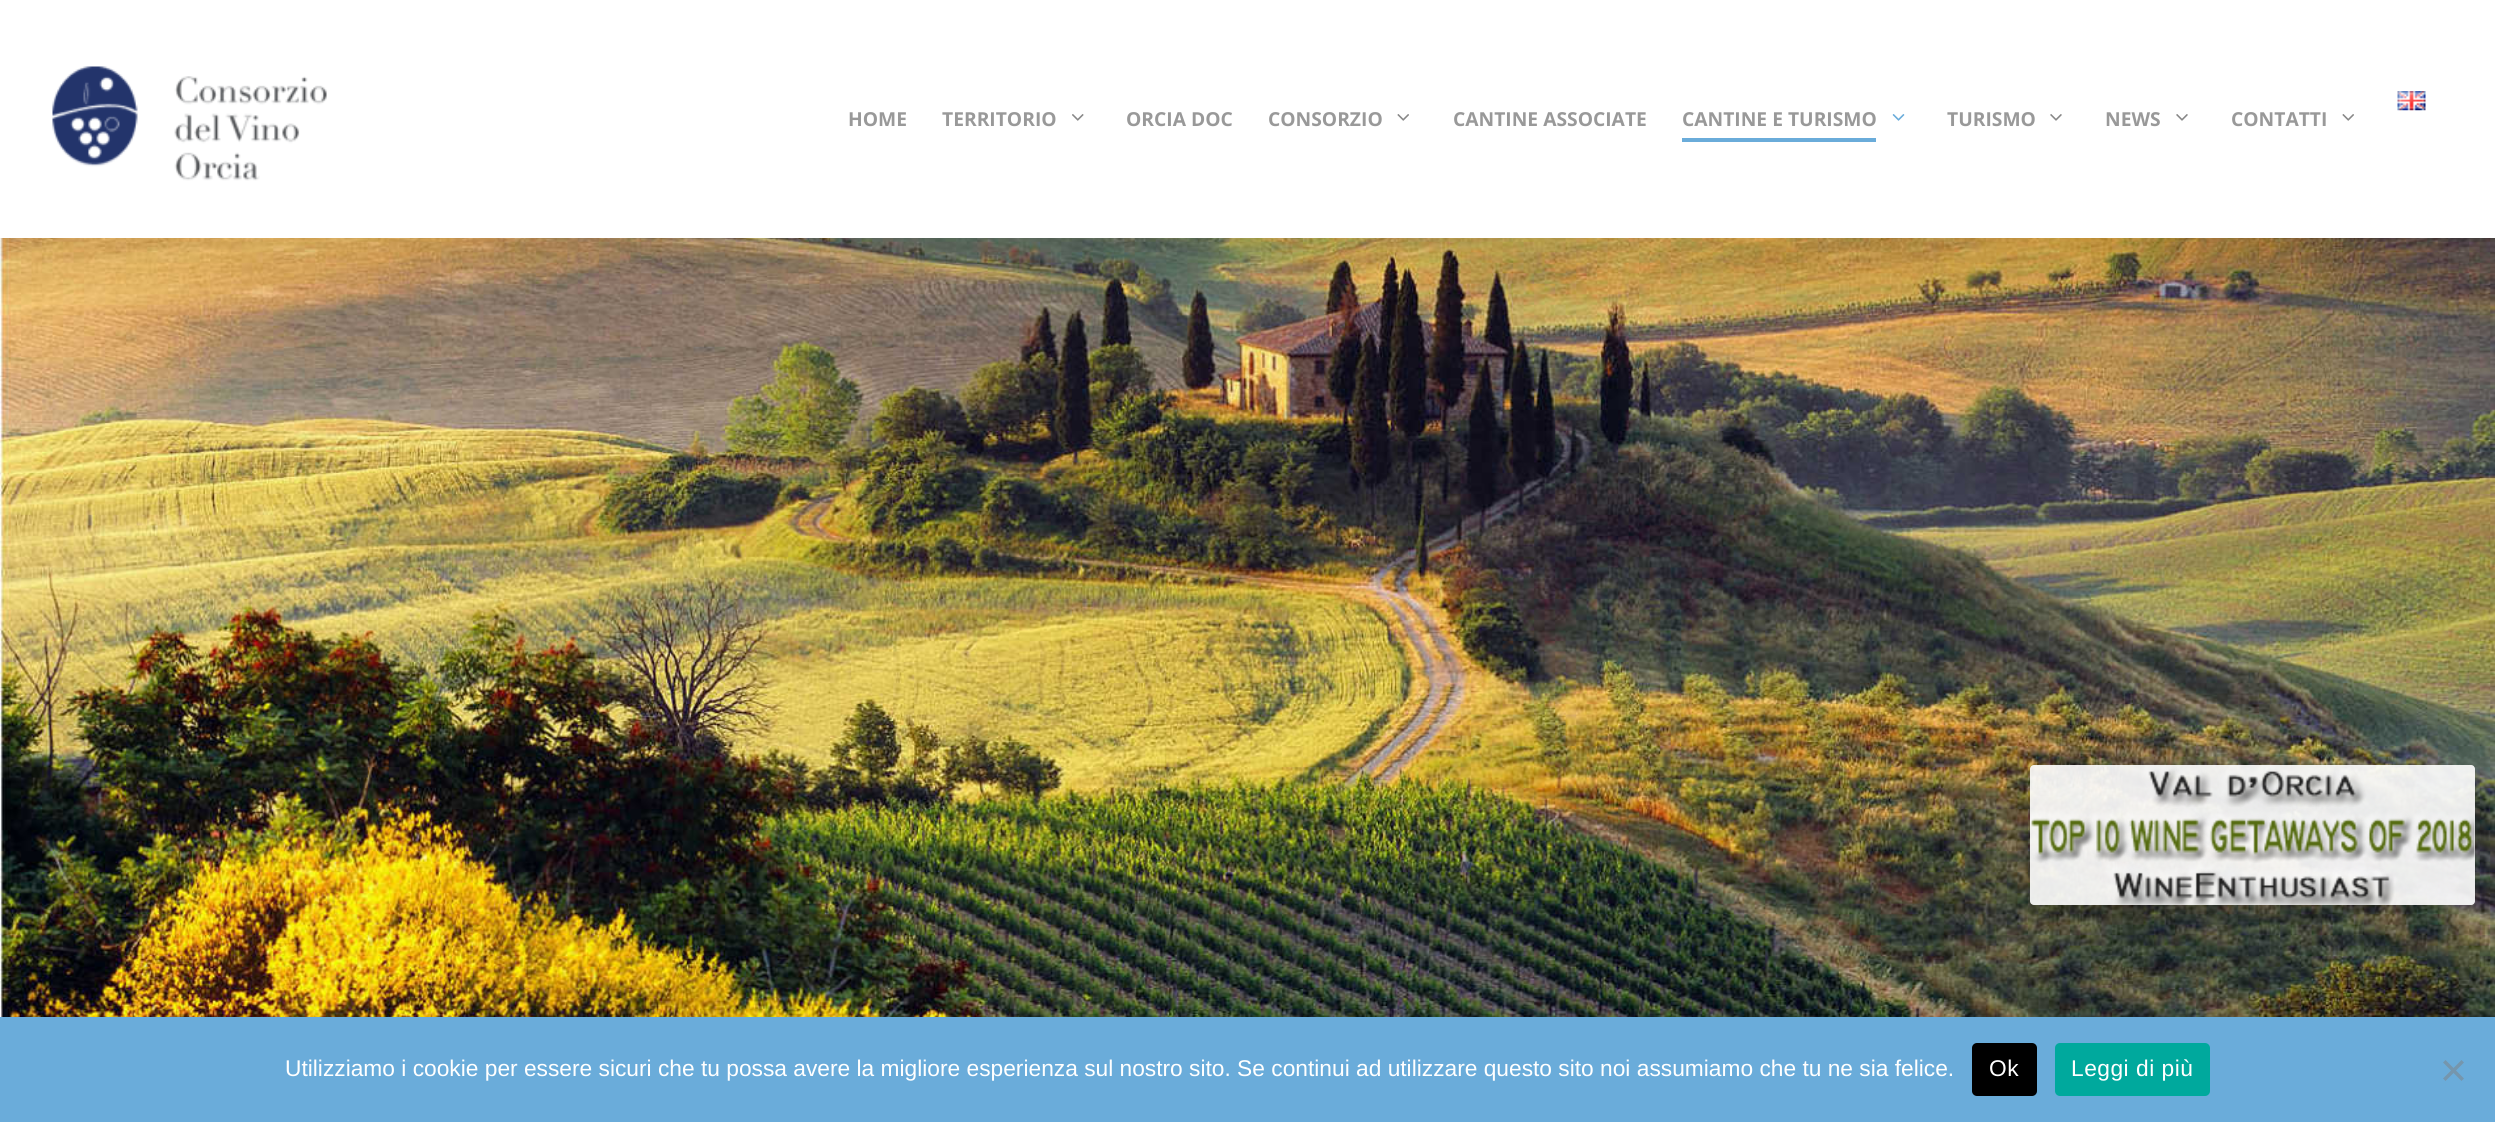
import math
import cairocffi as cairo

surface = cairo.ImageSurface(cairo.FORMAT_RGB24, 2495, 1122)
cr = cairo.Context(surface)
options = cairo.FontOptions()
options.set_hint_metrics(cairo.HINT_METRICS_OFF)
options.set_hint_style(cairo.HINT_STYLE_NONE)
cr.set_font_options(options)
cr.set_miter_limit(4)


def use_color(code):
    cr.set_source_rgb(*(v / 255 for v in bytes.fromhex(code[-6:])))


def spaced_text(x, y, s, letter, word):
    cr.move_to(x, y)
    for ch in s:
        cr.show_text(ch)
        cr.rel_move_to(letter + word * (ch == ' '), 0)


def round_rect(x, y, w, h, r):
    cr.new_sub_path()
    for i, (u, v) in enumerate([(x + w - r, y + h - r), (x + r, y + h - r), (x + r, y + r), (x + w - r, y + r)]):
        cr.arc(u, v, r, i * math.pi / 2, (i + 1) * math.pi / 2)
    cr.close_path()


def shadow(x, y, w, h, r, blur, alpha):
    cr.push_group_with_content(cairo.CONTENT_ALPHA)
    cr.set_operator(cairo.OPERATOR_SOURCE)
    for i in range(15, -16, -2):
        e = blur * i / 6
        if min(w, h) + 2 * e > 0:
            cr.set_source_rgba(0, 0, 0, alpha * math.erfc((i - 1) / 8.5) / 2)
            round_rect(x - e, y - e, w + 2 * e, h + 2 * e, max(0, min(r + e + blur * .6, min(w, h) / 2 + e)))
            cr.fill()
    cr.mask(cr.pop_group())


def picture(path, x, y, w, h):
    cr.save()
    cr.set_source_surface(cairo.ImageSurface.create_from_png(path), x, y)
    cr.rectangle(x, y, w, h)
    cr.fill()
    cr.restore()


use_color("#ffffff")
cr.paint()
picture("img8.png", 0, 238, 2495, 779)
use_color("#000000")
shadow(0, 5, 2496, 238, 0, 39.5, 0.15)
use_color("#ffffff")
cr.rectangle(0, 0, 2495, 238)
cr.fill()
picture("img1.png", 52, 66, 275, 115)
picture("img2.png", 2397, 91, 29, 20)
cr.select_font_face("Open Sans", cairo.FONT_SLANT_NORMAL, cairo.FONT_WEIGHT_BOLD)
cr.set_font_size(19.25)
use_color("#999999")
cr.move_to(848, 126)
cr.show_text("HOME")
cr.move_to(942, 126)
cr.show_text("TERRITORIO")
picture("img3.png", 1072, 114, 12, 7)
cr.move_to(1126, 126)
cr.show_text("ORCIA DOC")
cr.move_to(1268, 126)
cr.show_text("CONSORZIO")
picture("img4.png", 1397, 114, 12, 7)
cr.move_to(1453, 126)
cr.show_text("CANTINE ASSOCIATE")
cr.move_to(1682, 126)
cr.show_text("CANTINE E TURISMO")
use_color("#6aacda")
cr.rectangle(1682, 138, 194, 4)
cr.fill()
picture("img5.png", 1892, 114, 13, 7)
use_color("#999999")
cr.move_to(1947, 126)
cr.show_text("TURISMO")
picture("img6.png", 2050, 114, 12, 7)
cr.move_to(2105, 126)
cr.show_text("NEWS")
picture("img6.png", 2176, 114, 12, 7)
cr.move_to(2231, 126)
cr.show_text("CONTATTI")
picture("img4.png", 2342, 114, 12, 7)
cr.save()
cr.set_fill_rule(cairo.FILL_RULE_EVEN_ODD)
cr.new_path()
cr.move_to(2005, 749)
cr.line_to(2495, 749)
cr.line_to(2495, 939)
cr.line_to(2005, 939)
cr.close_path()
cr.move_to(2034, 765)
cr.line_to(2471, 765)
cr.curve_to(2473, 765, 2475, 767, 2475, 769)
cr.line_to(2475, 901)
cr.curve_to(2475, 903, 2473, 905, 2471, 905)
cr.line_to(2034, 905)
cr.curve_to(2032, 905, 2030, 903, 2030, 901)
cr.line_to(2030, 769)
cr.curve_to(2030, 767, 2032, 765, 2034, 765)
cr.close_path()
cr.clip()
use_color("#000000")
shadow(2030, 774, 445, 140, 4, 8, 0.2)
cr.restore()
cr.set_source_rgba(1, 1, 1, 0.9)
round_rect(2030, 765, 445, 140, 4)
cr.fill()
picture("img7.png", 2030, 764, 445, 141)
use_color("#6aacda")
cr.rectangle(0, 1017, 2495, 105)
cr.fill()
cr.select_font_face("Liberation Sans")
cr.set_font_size(22.75)
use_color("#ffffff")
cr.move_to(285, 1076)
cr.show_text("Utilizziamo i cookie per essere sicuri che tu possa avere la migliore esperienza sul nostro sito. Se continui ad utilizzare questo sito noi assumiamo che tu ne sia felice.")
use_color("#000000")
round_rect(1972, 1043, 65, 53, 5)
cr.fill()
use_color("#ffffff")
spaced_text(1989, 1076, "Ok", 0.5, 0)
use_color("#00a99d")
round_rect(2055, 1043, 155, 53, 5)
cr.fill()
use_color("#ffffff")
spaced_text(2071, 1076, "Leggi di più", 0.5, 0)
use_color("#7596ad")
cr.new_path()
cr.move_to(2461.5, 1060)
cr.line_to(2464, 1062.5)
cr.line_to(2445.5, 1081)
cr.line_to(2443, 1078.5)
cr.close_path()
cr.fill()
cr.new_path()
cr.move_to(2443, 1062.5)
cr.line_to(2445.5, 1060)
cr.line_to(2464, 1078.5)
cr.line_to(2461.5, 1081)
cr.close_path()
cr.fill()
surface.write_to_png("result.png")
